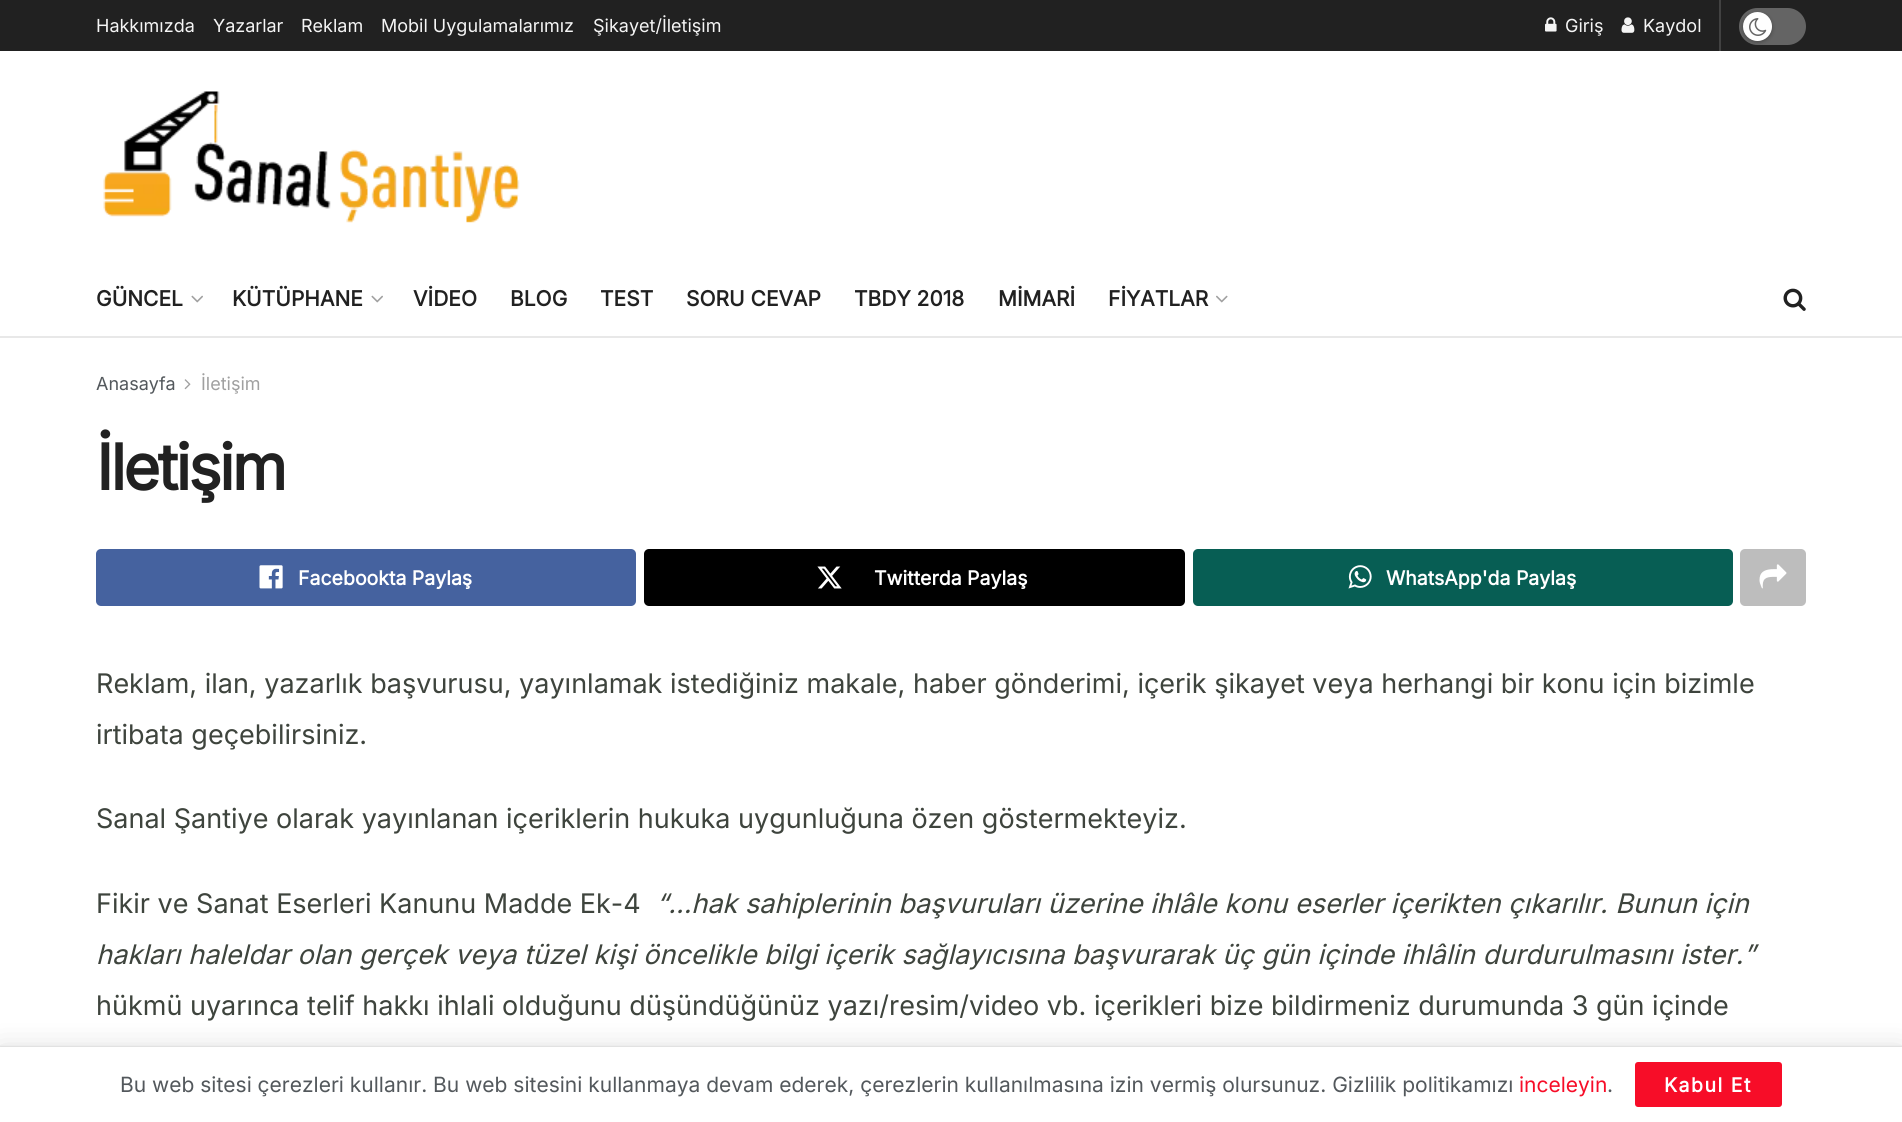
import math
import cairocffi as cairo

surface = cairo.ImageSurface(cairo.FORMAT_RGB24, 1902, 1122)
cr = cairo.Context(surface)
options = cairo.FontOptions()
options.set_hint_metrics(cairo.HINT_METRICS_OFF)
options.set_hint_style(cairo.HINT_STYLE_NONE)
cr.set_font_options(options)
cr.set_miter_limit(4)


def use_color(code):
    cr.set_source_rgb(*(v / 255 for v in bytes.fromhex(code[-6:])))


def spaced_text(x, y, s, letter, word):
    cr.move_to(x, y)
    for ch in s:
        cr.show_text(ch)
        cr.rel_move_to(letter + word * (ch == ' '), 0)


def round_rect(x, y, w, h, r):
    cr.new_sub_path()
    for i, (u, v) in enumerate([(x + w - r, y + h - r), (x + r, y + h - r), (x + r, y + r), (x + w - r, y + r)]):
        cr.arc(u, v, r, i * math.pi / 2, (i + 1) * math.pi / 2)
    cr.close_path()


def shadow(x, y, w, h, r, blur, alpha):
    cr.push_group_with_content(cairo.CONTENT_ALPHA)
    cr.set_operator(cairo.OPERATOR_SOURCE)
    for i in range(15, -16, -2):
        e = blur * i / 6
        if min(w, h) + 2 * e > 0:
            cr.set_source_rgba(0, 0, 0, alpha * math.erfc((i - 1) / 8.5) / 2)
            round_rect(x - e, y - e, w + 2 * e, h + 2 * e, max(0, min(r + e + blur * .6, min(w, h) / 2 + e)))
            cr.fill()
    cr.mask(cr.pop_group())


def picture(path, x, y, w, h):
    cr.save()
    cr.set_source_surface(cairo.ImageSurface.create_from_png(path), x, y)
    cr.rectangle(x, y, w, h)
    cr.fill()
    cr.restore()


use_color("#ffffff")
cr.paint()
use_color("#212121")
cr.rectangle(0, 0, 1902, 51)
cr.fill()
cr.select_font_face("Inter")
cr.set_font_size(18)
use_color("#f5f5f5")
cr.move_to(96, 32)
cr.show_text("Hakkımızda")
cr.move_to(213, 32)
cr.show_text("Yazarlar")
cr.move_to(301, 32)
cr.show_text("Reklam")
cr.move_to(381, 32)
cr.show_text("Mobil Uygulamalarımız")
cr.move_to(593, 32)
cr.show_text("Şikayet/İletişim")
use_color("#424242")
cr.rectangle(1719, 0, 2, 51)
cr.fill()
picture("img1.png", 1545, 17, 12, 15)
use_color("#f5f5f5")
cr.move_to(1565, 32)
cr.show_text("Giriş")
picture("img2.png", 1621, 17, 14, 16)
cr.move_to(1643, 32)
cr.show_text("Kaydol")
use_color("#646464")
round_rect(1739, 8, 67, 37, 18.5)
cr.fill()
use_color("#000000")
shadow(1743, 14, 29, 28, 14, 2, 0.3)
use_color("#ffffff")
cr.arc(1757.5, 26.5, 14.5, 0, 2 * math.pi)
cr.fill()
picture("img3.png", 1749, 18, 18, 18)
picture("img4.png", 103, 91, 417, 132)
use_color("#e8e8e8")
cr.rectangle(0, 336, 1902, 2)
cr.fill()
cr.select_font_face("Inter", cairo.FONT_SLANT_NORMAL, cairo.FONT_WEIGHT_BOLD)
cr.set_font_size(21)
use_color("#212121")
cr.move_to(96, 306)
cr.show_text("GÜNCEL")
picture("img5.png", 191, 295, 12, 8)
cr.move_to(232, 306)
cr.show_text("KÜTÜPHANE")
picture("img5.png", 371, 295, 12, 8)
cr.move_to(413, 306)
cr.show_text("VİDEO")
cr.move_to(510, 306)
cr.show_text("BLOG")
cr.move_to(600, 306)
cr.show_text("TEST")
cr.move_to(686, 306)
cr.show_text("SORU CEVAP")
cr.move_to(854, 306)
cr.show_text("TBDY 2018")
cr.move_to(998, 306)
cr.show_text("MİMARİ")
cr.move_to(1108, 306)
cr.show_text("FİYATLAR")
picture("img6.png", 1216, 295, 12, 8)
picture("img7.png", 1783, 288, 23, 23)
cr.select_font_face("Inter")
cr.set_font_size(18)
use_color("#53585c")
cr.move_to(96, 390)
cr.show_text("Anasayfa")
picture("img8.png", 184, 379, 7, 11)
use_color("#a0a0a0")
cr.move_to(201, 390)
cr.show_text("İletişim")
cr.select_font_face("Inter", cairo.FONT_SLANT_NORMAL, cairo.FONT_WEIGHT_BOLD)
cr.set_font_size(63)
use_color("#212121")
spaced_text(96, 490, "İletişim", -2.5, 0)
use_color("#45629f")
round_rect(96, 549, 540, 57, 5)
cr.fill()
picture("img9.png", 259, 565, 24, 24)
cr.set_font_size(19.5)
use_color("#ffffff")
cr.move_to(298, 585)
cr.show_text("Facebookta Paylaş")
use_color("#000000")
round_rect(644, 549, 541, 57, 5)
cr.fill()
picture("img10.png", 817, 566, 25, 23)
use_color("#ffffff")
cr.move_to(874, 585)
cr.show_text("Twitterda Paylaş")
use_color("#075e54")
round_rect(1193, 549, 540, 57, 5)
cr.fill()
picture("img11.png", 1348, 565, 24, 24)
use_color("#ffffff")
cr.move_to(1386, 585)
cr.show_text("WhatsApp'da Paylaş")
use_color("#bdbdbd")
round_rect(1740, 549, 66, 57, 5)
cr.fill()
picture("img12.png", 1759, 564, 28, 25)
cr.select_font_face("Inter")
cr.set_font_size(27)
use_color("#3e443d")
cr.move_to(96, 693)
cr.show_text("Reklam, ilan, yazarlık başvurusu, yayınlamak istediğiniz makale, haber gönderimi, içerik şikayet veya herhangi bir konu için bizimle")
cr.move_to(96, 744)
cr.show_text("irtibata geçebilirsiniz.")
cr.move_to(96, 828)
cr.show_text("Sanal Şantiye olarak yayınlanan içeriklerin hukuka uygunluğuna özen göstermekteyiz.")
cr.move_to(96, 913)
cr.show_text("Fikir ve Sanat Eserleri Kanunu Madde Ek-4")
cr.select_font_face("Inter", cairo.FONT_SLANT_ITALIC)
cr.move_to(656, 913)
cr.show_text("“…hak sahiplerinin başvuruları üzerine ihlâle konu eserler içerikten çıkarılır. Bunun için")
cr.move_to(96, 964)
cr.show_text("hakları haleldar olan gerçek veya tüzel kişi öncelikle bilgi içerik sağlayıcısına başvurarak üç gün içinde ihlâlin durdurulmasını ister.”")
cr.select_font_face("Inter")
cr.move_to(96, 1015)
cr.show_text("hükmü uyarınca telif hakkı ihlali olduğunu düşündüğünüz yazı/resim/video vb. içerikleri bize bildirmeniz durumunda 3 gün içinde")
use_color("#000000")
shadow(0, 1050, 1902, 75, 0, 15, 0.15)
shadow(0, 1047, 1902, 75, 0, 1, 0.2)
use_color("#ffffff")
cr.rectangle(0, 1047, 1902, 75)
cr.fill()
cr.set_font_size(21)
use_color("#53585c")
cr.move_to(120, 1092)
cr.show_text("Bu web sitesi çerezleri kullanır. Bu web sitesini kullanmaya devam ederek, çerezlerin kullanılmasına izin vermiş olursunuz. Gizlilik politikamızı")
use_color("#f70d28")
cr.move_to(1519, 1092)
cr.show_text("inceleyin")
use_color("#53585c")
cr.move_to(1607, 1092)
cr.show_text(".")
use_color("#f70d28")
round_rect(1635, 1062, 147, 45, 3)
cr.fill()
cr.select_font_face("Inter", cairo.FONT_SLANT_NORMAL, cairo.FONT_WEIGHT_BOLD)
cr.set_font_size(19.5)
use_color("#ffffff")
spaced_text(1664, 1092, "Kabul Et", 1.5, 0)
surface.write_to_png("result.png")
